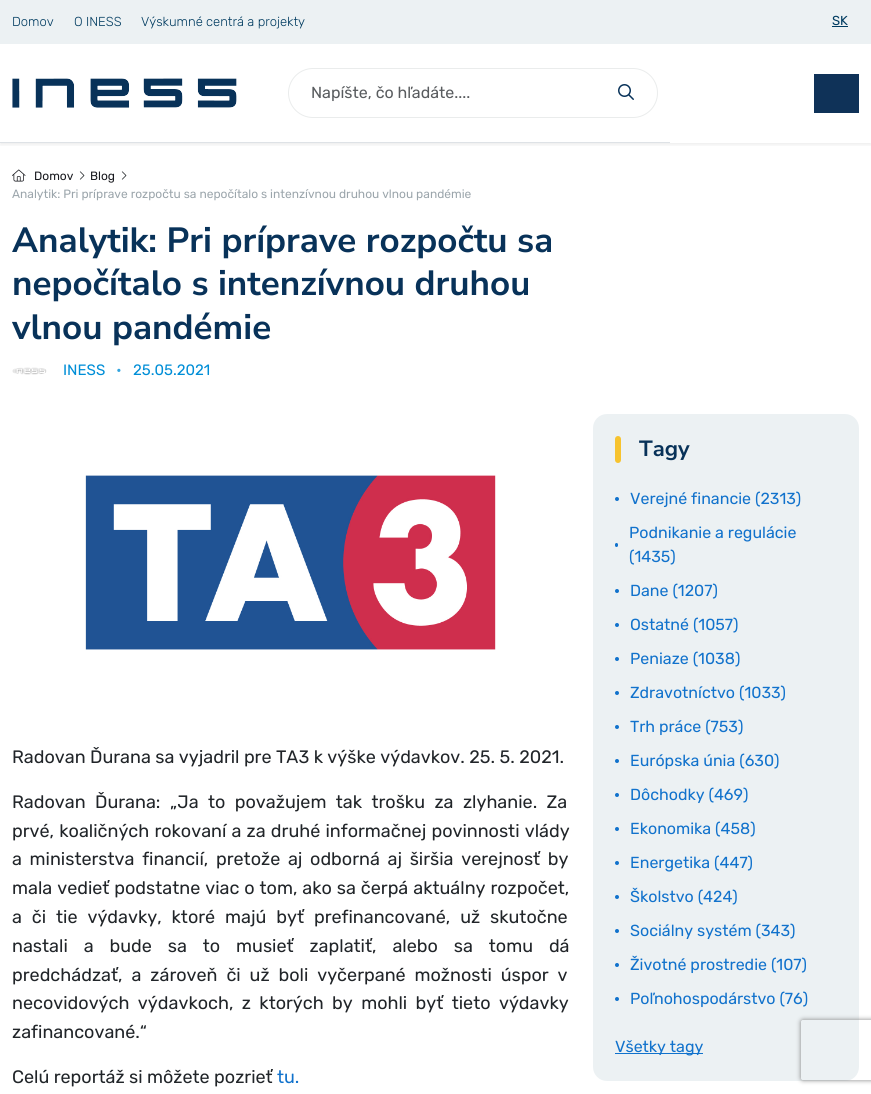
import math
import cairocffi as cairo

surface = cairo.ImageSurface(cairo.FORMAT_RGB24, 871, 1094)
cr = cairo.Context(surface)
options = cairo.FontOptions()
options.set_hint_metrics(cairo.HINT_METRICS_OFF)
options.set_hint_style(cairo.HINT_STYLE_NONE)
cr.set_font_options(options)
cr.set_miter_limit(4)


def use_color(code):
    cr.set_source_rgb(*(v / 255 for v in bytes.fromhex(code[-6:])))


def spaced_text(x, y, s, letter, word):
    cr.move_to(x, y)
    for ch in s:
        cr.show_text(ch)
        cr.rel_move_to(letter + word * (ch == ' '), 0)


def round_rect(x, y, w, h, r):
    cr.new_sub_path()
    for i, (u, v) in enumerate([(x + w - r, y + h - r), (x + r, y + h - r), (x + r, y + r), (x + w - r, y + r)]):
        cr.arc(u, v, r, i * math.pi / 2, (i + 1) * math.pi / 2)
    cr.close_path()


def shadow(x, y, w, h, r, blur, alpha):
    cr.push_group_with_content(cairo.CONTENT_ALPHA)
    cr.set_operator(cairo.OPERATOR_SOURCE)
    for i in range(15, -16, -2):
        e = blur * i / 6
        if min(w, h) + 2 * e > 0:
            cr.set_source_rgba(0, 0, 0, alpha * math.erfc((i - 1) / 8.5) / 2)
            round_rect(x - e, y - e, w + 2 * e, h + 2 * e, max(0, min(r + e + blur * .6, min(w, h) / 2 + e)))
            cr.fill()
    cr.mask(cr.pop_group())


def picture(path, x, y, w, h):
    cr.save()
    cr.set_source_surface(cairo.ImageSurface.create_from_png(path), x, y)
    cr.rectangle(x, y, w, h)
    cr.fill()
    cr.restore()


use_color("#ffffff")
cr.paint()
use_color("#ecf1f3")
cr.rectangle(0, 0, 871, 44)
cr.fill()
cr.select_font_face("Rubik Light")
cr.set_font_size(13)
use_color("#003b60")
cr.move_to(12, 26)
cr.show_text("Domov")
cr.move_to(74, 26)
cr.show_text("O INESS")
cr.move_to(141, 26)
cr.show_text("Výskumné centrá a projekty")
cr.select_font_face("Rubik")
cr.move_to(832, 25)
cr.show_text("SK")
cr.rectangle(832, 26, 16, 1)
cr.fill()
cr.save()
cr.rectangle(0, 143, 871, 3)
cr.clip()
use_color("#000000")
shadow(0, 46, 871, 99, 0, 2, 0.07)
cr.restore()
use_color("#dee2e6")
cr.rectangle(0, 142, 670, 1)
cr.fill()
picture("img1.png", 12, 78, 225, 30)
round_rect(288.5, 68.5, 369, 49, 24.5)
use_color("#eaecec")
cr.set_line_width(1)
cr.stroke()
cr.set_font_size(16)
use_color("#595c5f")
cr.move_to(311, 98)
cr.show_text("Napíšte, čo hľadáte....")
picture("img2.png", 618, 84, 16, 16)
use_color("#0f3258")
cr.rectangle(814, 74, 45, 39)
cr.fill()
picture("img3.png", 12, 169, 14, 13)
cr.set_font_size(12)
use_color("#191a1f")
cr.move_to(34, 180)
cr.show_text("Domov")
picture("img4.png", 79, 171, 6, 9)
cr.move_to(90, 180)
cr.show_text("Blog")
picture("img4.png", 121, 171, 6, 9)
use_color("#9ca6ac")
cr.move_to(12, 198)
cr.show_text("Analytik: Pri príprave rozpočtu sa nepočítalo s intenzívnou druhou vlnou pandémie")
cr.select_font_face("Nunito Sans", cairo.FONT_SLANT_NORMAL, cairo.FONT_WEIGHT_BOLD)
cr.set_font_size(35)
use_color("#083259")
cr.move_to(12, 252)
cr.show_text("Analytik: Pri príprave rozpočtu sa")
cr.move_to(12, 295)
cr.show_text("nepočítalo s intenzívnou druhou")
cr.move_to(12, 339)
cr.show_text("vlnou pandémie")
picture("img5.png", 12, 367, 35, 8)
cr.select_font_face("Rubik")
cr.set_font_size(15)
use_color("#008ed7")
cr.move_to(63, 375)
cr.show_text("INESS")
use_color("#33a5df")
cr.move_to(116, 375)
cr.show_text("•")
use_color("#008ed7")
cr.move_to(133, 375)
cr.show_text("25.05.2021")
picture("img6.png", 85, 475, 411, 175)
cr.set_font_size(18)
use_color("#212529")
cr.move_to(12, 763)
cr.show_text("Radovan Ďurana sa vyjadril pre TA3 k výške výdavkov. 25. 5. 2021.")
spaced_text(12, 808, "Radovan Ďurana: „Ja to považujem tak trošku za zlyhanie. Za", 0, 5)
spaced_text(12, 837, "prvé, koaličných rokovaní a za druhé informačnej povinnosti vlády", 0, 0.75)
spaced_text(12, 865, "a ministerstva financií, pretože aj odborná aj širšia verejnosť by", 0, 3.25)
spaced_text(12, 894, "mala vedieť podstatne viac o tom, ako sa čerpá aktuálny rozpočet,", 0, 0.5)
spaced_text(12, 923, "a či tie výdavky, ktoré majú byť prefinancované, už skutočne", 0, 5.5)
spaced_text(12, 952, "nastali a bude sa to musieť zaplatiť, alebo sa tomu dá", 0, 11.5)
spaced_text(12, 981, "predchádzať, a zároveň či už boli vyčerpané možnosti úspor v", 0, 4.5)
spaced_text(12, 1009, "necovidových výdavkoch, z ktorých by mohli byť tieto výdavky", 0, 4)
cr.move_to(12, 1038)
cr.show_text("zafinancované.“")
cr.move_to(12, 1083)
cr.show_text("Celú reportáž si môžete pozrieť")
use_color("#1172cc")
cr.move_to(277, 1083)
cr.show_text("tu.")
use_color("#ecf1f3")
round_rect(593, 414, 266, 667, 14)
cr.fill()
use_color("#f7c32e")
round_rect(615, 436, 6, 27, 3)
cr.fill()
cr.select_font_face("Nunito Sans", cairo.FONT_SLANT_NORMAL, cairo.FONT_WEIGHT_BOLD)
cr.set_font_size(22)
use_color("#083259")
cr.move_to(639, 456)
cr.show_text("Tagy")
use_color("#1172cc")
cr.new_path()
cr.arc(617, 499, 2, 0, 2 * math.pi)
cr.fill()
cr.select_font_face("Rubik")
cr.set_font_size(16)
cr.move_to(630, 504)
cr.show_text("Verejné financie (2313)")
round_rect(615, 543, 3, 4, 1.5)
cr.fill()
cr.move_to(629, 538)
cr.show_text("Podnikanie a regulácie")
cr.move_to(629, 562)
cr.show_text("(1435)")
cr.new_path()
cr.arc(617, 591, 2, 0, 2 * math.pi)
cr.fill()
cr.move_to(630, 596)
cr.show_text("Dane (1207)")
cr.new_path()
cr.arc(617, 625, 2, 0, 2 * math.pi)
cr.fill()
cr.move_to(630, 630)
cr.show_text("Ostatné (1057)")
cr.new_path()
cr.arc(617, 659, 2, 0, 2 * math.pi)
cr.fill()
cr.move_to(630, 664)
cr.show_text("Peniaze (1038)")
cr.new_path()
cr.arc(617, 693, 2, 0, 2 * math.pi)
cr.fill()
cr.move_to(630, 698)
cr.show_text("Zdravotníctvo (1033)")
cr.new_path()
cr.arc(617, 727, 2, 0, 2 * math.pi)
cr.fill()
cr.move_to(630, 732)
cr.show_text("Trh práce (753)")
cr.new_path()
cr.arc(617, 761, 2, 0, 2 * math.pi)
cr.fill()
cr.move_to(630, 766)
cr.show_text("Európska únia (630)")
cr.new_path()
cr.arc(617, 795, 2, 0, 2 * math.pi)
cr.fill()
cr.move_to(630, 800)
cr.show_text("Dôchodky (469)")
cr.new_path()
cr.arc(617, 829, 2, 0, 2 * math.pi)
cr.fill()
cr.move_to(630, 834)
cr.show_text("Ekonomika (458)")
cr.new_path()
cr.arc(617, 863, 2, 0, 2 * math.pi)
cr.fill()
cr.move_to(630, 868)
cr.show_text("Energetika (447)")
cr.new_path()
cr.arc(617, 897, 2, 0, 2 * math.pi)
cr.fill()
cr.move_to(630, 902)
cr.show_text("Školstvo (424)")
cr.new_path()
cr.arc(617, 931, 2, 0, 2 * math.pi)
cr.fill()
cr.move_to(630, 936)
cr.show_text("Sociálny systém (343)")
cr.new_path()
cr.arc(617, 965, 2, 0, 2 * math.pi)
cr.fill()
cr.move_to(630, 970)
cr.show_text("Životné prostredie (107)")
cr.new_path()
cr.arc(617, 999, 2, 0, 2 * math.pi)
cr.fill()
cr.move_to(630, 1004)
cr.show_text("Poľnohospodárstvo (76)")
cr.rectangle(615, 1053, 88, 1)
cr.fill()
cr.move_to(615, 1052)
cr.show_text("Všetky tagy")
cr.save()
cr.set_fill_rule(cairo.FILL_RULE_EVEN_ODD)
cr.new_path()
cr.move_to(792, 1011)
cr.line_to(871, 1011)
cr.line_to(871, 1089)
cr.line_to(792, 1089)
cr.close_path()
cr.move_to(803, 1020)
cr.line_to(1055, 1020)
cr.curve_to(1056, 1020, 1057, 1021, 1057, 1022)
cr.line_to(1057, 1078)
cr.curve_to(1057, 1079, 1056, 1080, 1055, 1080)
cr.line_to(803, 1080)
cr.curve_to(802, 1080, 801, 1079, 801, 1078)
cr.line_to(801, 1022)
cr.curve_to(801, 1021, 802, 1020, 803, 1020)
cr.close_path()
cr.clip()
use_color("#808080")
shadow(801, 1020, 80, 60, 2, 2.5, 1)
cr.restore()
surface.write_to_png("result.png")
